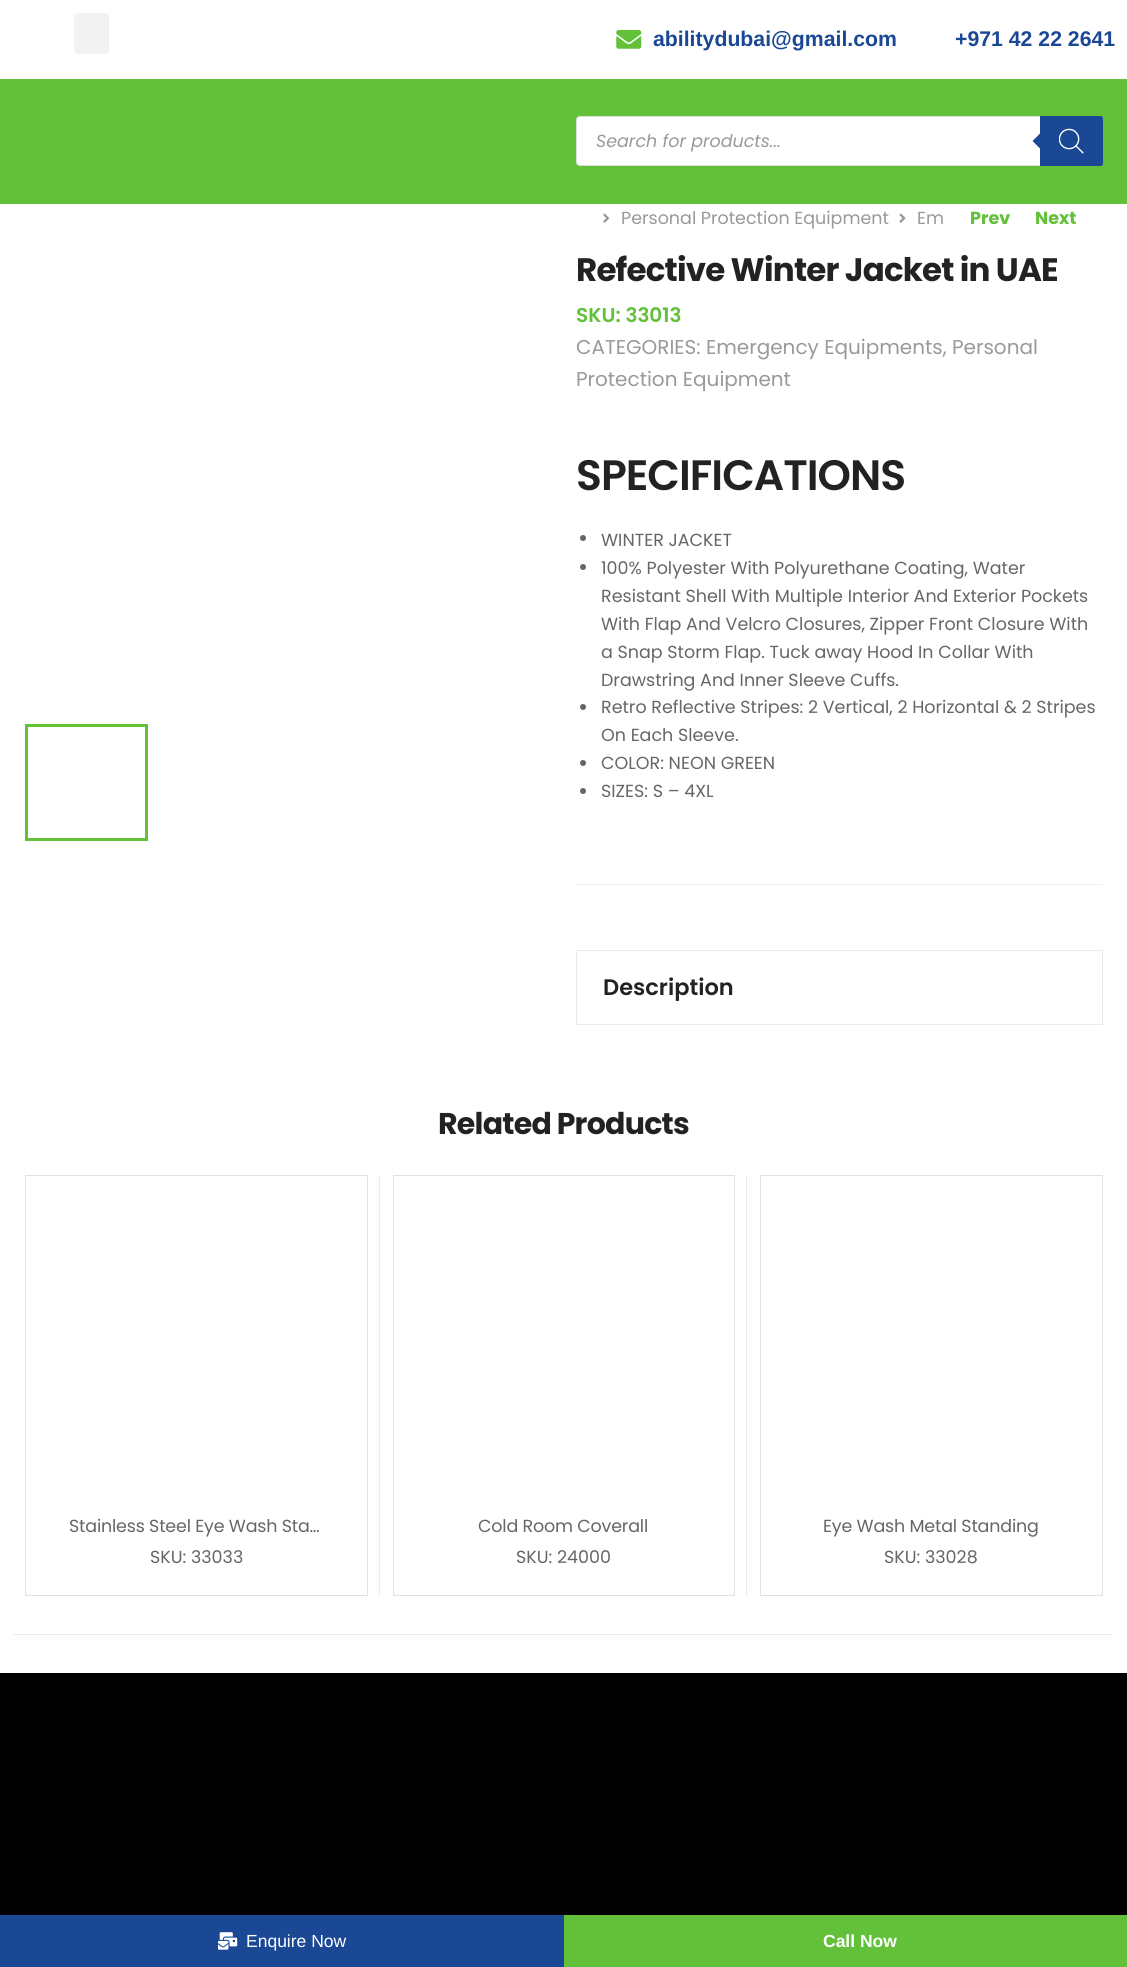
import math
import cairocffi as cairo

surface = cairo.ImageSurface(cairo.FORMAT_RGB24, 1127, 1967)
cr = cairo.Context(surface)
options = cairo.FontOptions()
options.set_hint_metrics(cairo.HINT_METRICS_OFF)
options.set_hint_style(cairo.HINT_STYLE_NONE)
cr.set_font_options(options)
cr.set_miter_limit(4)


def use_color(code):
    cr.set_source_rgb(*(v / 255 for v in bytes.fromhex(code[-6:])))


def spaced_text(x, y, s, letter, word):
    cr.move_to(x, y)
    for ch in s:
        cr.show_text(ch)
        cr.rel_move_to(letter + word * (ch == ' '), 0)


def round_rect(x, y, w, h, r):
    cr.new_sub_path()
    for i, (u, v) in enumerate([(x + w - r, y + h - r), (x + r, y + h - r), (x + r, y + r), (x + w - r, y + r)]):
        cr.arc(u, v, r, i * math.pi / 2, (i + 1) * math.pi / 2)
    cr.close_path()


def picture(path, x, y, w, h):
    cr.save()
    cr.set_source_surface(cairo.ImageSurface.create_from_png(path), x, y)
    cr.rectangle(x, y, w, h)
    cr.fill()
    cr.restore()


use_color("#ffffff")
cr.paint()
use_color("#f2f2f2")
round_rect(74, 13, 35, 41, 4)
cr.fill()
picture("img1.png", 616, 30, 26, 19)
cr.select_font_face("Liberation Sans", cairo.FONT_SLANT_NORMAL, cairo.FONT_WEIGHT_BOLD)
cr.set_font_size(21.25)
use_color("#1a4895")
cr.move_to(653, 46)
cr.show_text("abilitydubai@gmail.com")
cr.move_to(955, 46)
cr.show_text("+971 42 22 2641")
use_color("#62c039")
cr.rectangle(0, 79, 1127, 125)
cr.fill()
use_color("#ffffff")
round_rect(576.5, 116.5, 526, 49, 3.5)
cr.fill_preserve()
use_color("#dddddd")
cr.set_line_width(1)
cr.stroke()
cr.select_font_face("Poppins", cairo.FONT_SLANT_ITALIC)
cr.set_font_size(17.5)
use_color("#999999")
cr.move_to(596, 147)
cr.show_text("Search for products...")
use_color("#1a4895")
cr.new_path()
cr.move_to(1040, 116)
cr.line_to(1100.5, 116)
cr.curve_to(1102, 116, 1103, 117, 1103, 118.5)
cr.line_to(1103, 163.5)
cr.curve_to(1103, 165, 1102, 166, 1100.5, 166)
cr.line_to(1040, 166)
cr.close_path()
cr.fill()
cr.new_path()
cr.move_to(1042.5, 131)
cr.line_to(1042.5, 151)
cr.line_to(1032.5, 141)
cr.close_path()
cr.fill()
picture("img2.png", 1059, 128, 25, 26)
cr.rectangle(26.5, 725.5, 120, 114)
use_color("#62c039")
cr.set_line_width(3)
cr.stroke()
picture("img3.png", 603, 213, 7, 10)
cr.select_font_face("Poppins")
use_color("#999999")
cr.move_to(621, 224)
cr.show_text("Personal Protection Equipment")
picture("img4.png", 899, 213, 7, 10)
cr.move_to(917, 224)
cr.show_text("Em")
cr.select_font_face("Poppins", cairo.FONT_SLANT_NORMAL, cairo.FONT_WEIGHT_BOLD)
use_color("#62c039")
cr.move_to(970, 224)
cr.show_text("Prev")
cr.move_to(1035, 224)
cr.show_text("Next")
cr.set_font_size(32.5)
use_color("#222222")
spaced_text(576, 281, "Refective Winter Jacket in UAE", -0.8, 0)
cr.select_font_face("Poppins SemiBold")
cr.set_font_size(20)
use_color("#62c039")
cr.move_to(576, 322)
cr.show_text("SKU: 33013")
cr.select_font_face("Poppins")
use_color("#999999")
cr.move_to(576, 354)
cr.show_text("CATEGORIES: Emergency Equipments, Personal")
cr.move_to(576, 386)
cr.show_text("Protection Equipment")
cr.select_font_face("Poppins SemiBold")
cr.set_font_size(42.5)
use_color("#222222")
spaced_text(576, 490, "SPECIFICATIONS", -1, 0)
use_color("#666666")
cr.new_path()
cr.arc(583, 538, 3, 0, 2 * math.pi)
cr.fill()
cr.select_font_face("Poppins")
cr.set_font_size(17.5)
cr.move_to(601, 546)
cr.show_text("WINTER JACKET")
cr.new_path()
cr.arc(583, 567, 3, 0, 2 * math.pi)
cr.fill()
cr.move_to(601, 574)
cr.show_text("100% Polyester With Polyurethane Coating, Water")
cr.move_to(601, 602)
cr.show_text("Resistant Shell With Multiple Interior And Exterior Pockets")
cr.move_to(601, 630)
cr.show_text("With Flap And Velcro Closures, Zipper Front Closure With")
cr.move_to(601, 658)
cr.show_text("a Snap Storm Flap. Tuck away Hood In Collar With")
cr.move_to(601, 686)
cr.show_text("Drawstring And Inner Sleeve Cuffs.")
cr.new_path()
cr.arc(583, 707, 3, 0, 2 * math.pi)
cr.fill()
cr.move_to(601, 713)
cr.show_text("Retro Reflective Stripes: 2 Vertical, 2 Horizontal & 2 Stripes")
cr.move_to(601, 741)
cr.show_text("On Each Sleeve.")
cr.new_path()
cr.arc(583, 763, 3, 0, 2 * math.pi)
cr.fill()
cr.move_to(601, 769)
cr.show_text("COLOR: NEON GREEN")
cr.new_path()
cr.arc(583, 791, 3, 0, 2 * math.pi)
cr.fill()
cr.move_to(601, 797)
cr.show_text("SIZES: S – 4XL")
use_color("#eeeeee")
cr.rectangle(576, 884, 527, 1)
cr.fill()
cr.rectangle(576.5, 950.5, 526, 74)
use_color("#ebebeb")
cr.set_line_width(1)
cr.stroke()
cr.select_font_face("Poppins SemiBold")
cr.set_font_size(22.5)
use_color("#222222")
cr.move_to(603, 995)
cr.show_text("Description")
cr.select_font_face("Poppins", cairo.FONT_SLANT_NORMAL, cairo.FONT_WEIGHT_BOLD)
cr.set_font_size(30)
spaced_text(438, 1134, "Related Products", -0.75, 0)
use_color("#ebebeb")
cr.rectangle(13, 1634, 1102, 1)
cr.fill()
cr.rectangle(25.5, 1175.5, 342, 420)
use_color("#e1e1e1")
cr.stroke()
cr.select_font_face("Poppins")
cr.set_font_size(17.5)
use_color("#666666")
spaced_text(69, 1532, "Stainless Steel Eye Wash Sta…", -0.2, 0)
cr.move_to(150, 1563)
cr.show_text("SKU: 33033")
use_color("#ebebeb")
cr.rectangle(379, 1175, 1, 421)
cr.fill()
cr.rectangle(393.5, 1175.5, 341, 420)
use_color("#e1e1e1")
cr.stroke()
use_color("#666666")
spaced_text(478, 1532, "Cold Room Coverall", -0.2, 0)
cr.move_to(516, 1563)
cr.show_text("SKU: 24000")
use_color("#ebebeb")
cr.rectangle(746, 1175, 1, 421)
cr.fill()
cr.rectangle(760.5, 1175.5, 342, 420)
use_color("#e1e1e1")
cr.stroke()
use_color("#666666")
spaced_text(823, 1532, "Eye Wash Metal Standing", -0.2, 0)
cr.move_to(884, 1563)
cr.show_text("SKU: 33028")
use_color("#ffffff")
cr.rectangle(1113, 1634, 2, 1)
cr.fill()
use_color("#000000")
cr.rectangle(0, 1673, 1127, 242)
cr.fill()
use_color("#1a4895")
cr.rectangle(0, 1915, 564, 52)
cr.fill()
picture("img5.png", 218, 1932, 20, 18)
cr.select_font_face("Liberation Sans")
use_color("#ffffff")
cr.move_to(246, 1947)
cr.show_text("Enquire Now")
use_color("#62c039")
cr.rectangle(564, 1915, 563, 52)
cr.fill()
cr.select_font_face("Liberation Sans", cairo.FONT_SLANT_NORMAL, cairo.FONT_WEIGHT_BOLD)
use_color("#ffffff")
cr.move_to(823, 1947)
cr.show_text("Call Now")
surface.write_to_png("result.png")
